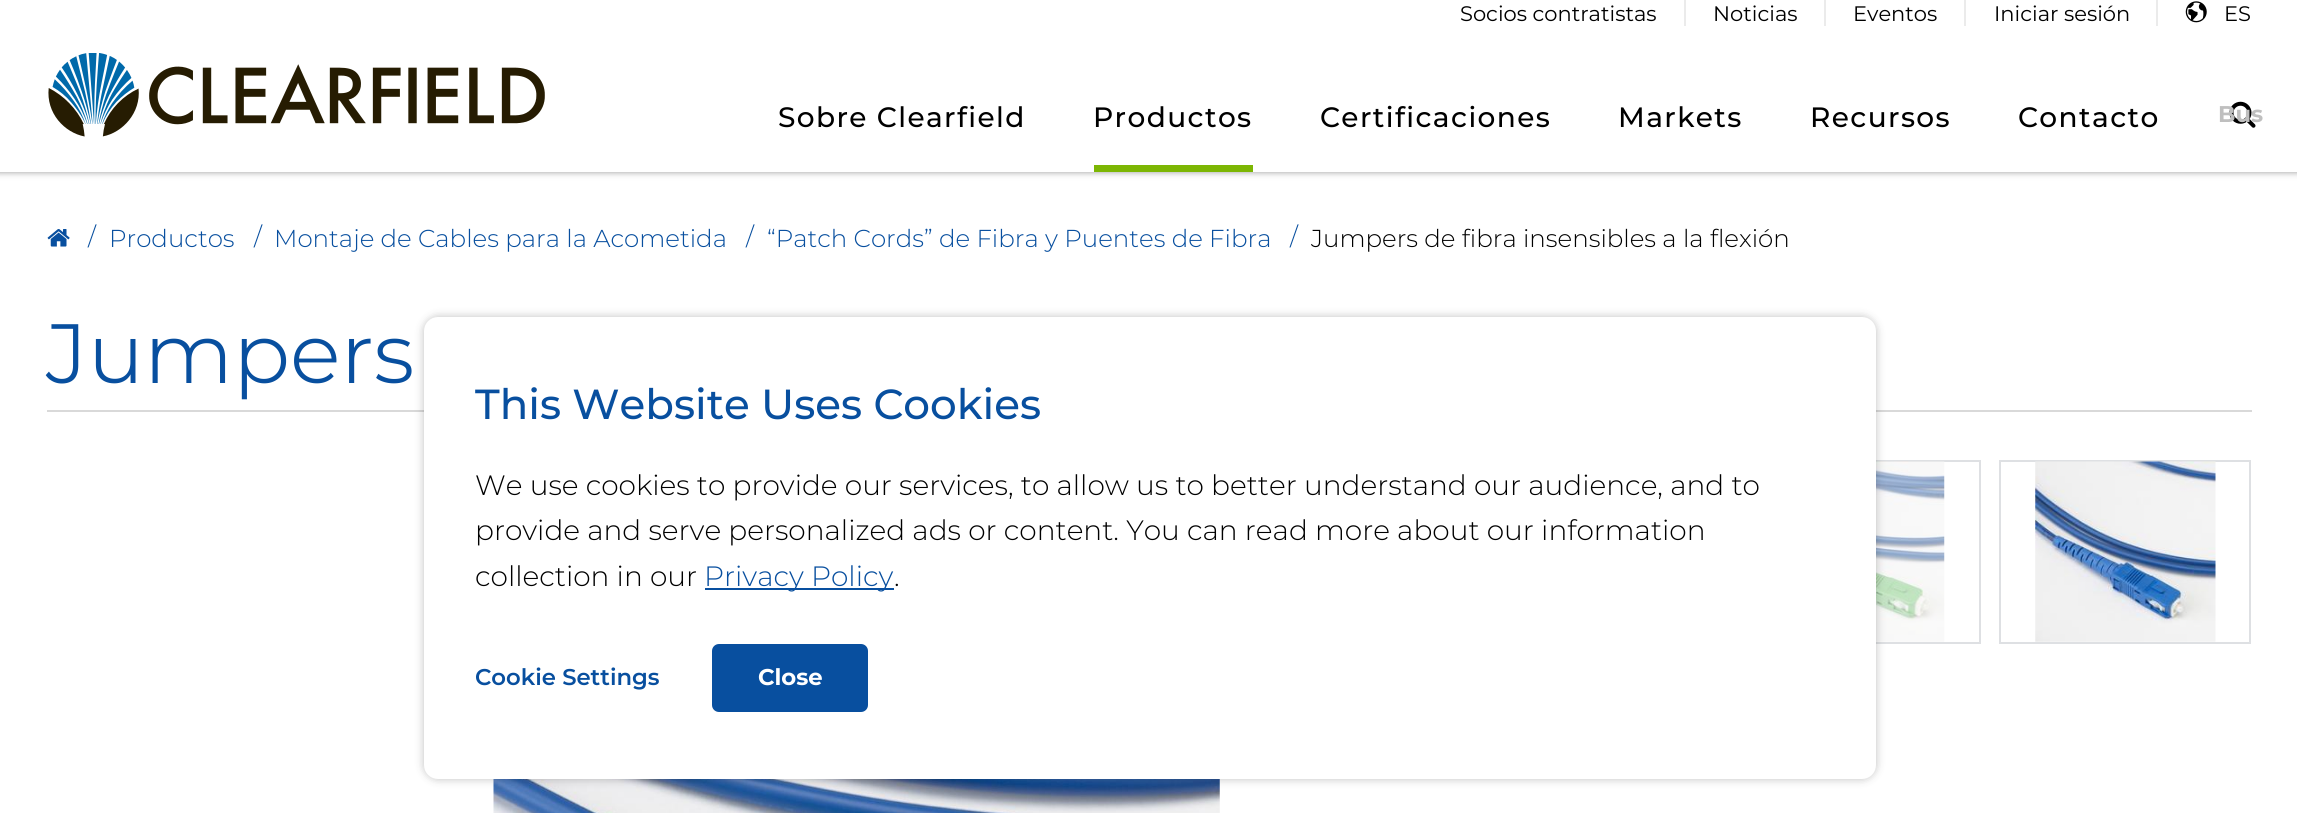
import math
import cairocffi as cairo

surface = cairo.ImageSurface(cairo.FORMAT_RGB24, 2297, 813)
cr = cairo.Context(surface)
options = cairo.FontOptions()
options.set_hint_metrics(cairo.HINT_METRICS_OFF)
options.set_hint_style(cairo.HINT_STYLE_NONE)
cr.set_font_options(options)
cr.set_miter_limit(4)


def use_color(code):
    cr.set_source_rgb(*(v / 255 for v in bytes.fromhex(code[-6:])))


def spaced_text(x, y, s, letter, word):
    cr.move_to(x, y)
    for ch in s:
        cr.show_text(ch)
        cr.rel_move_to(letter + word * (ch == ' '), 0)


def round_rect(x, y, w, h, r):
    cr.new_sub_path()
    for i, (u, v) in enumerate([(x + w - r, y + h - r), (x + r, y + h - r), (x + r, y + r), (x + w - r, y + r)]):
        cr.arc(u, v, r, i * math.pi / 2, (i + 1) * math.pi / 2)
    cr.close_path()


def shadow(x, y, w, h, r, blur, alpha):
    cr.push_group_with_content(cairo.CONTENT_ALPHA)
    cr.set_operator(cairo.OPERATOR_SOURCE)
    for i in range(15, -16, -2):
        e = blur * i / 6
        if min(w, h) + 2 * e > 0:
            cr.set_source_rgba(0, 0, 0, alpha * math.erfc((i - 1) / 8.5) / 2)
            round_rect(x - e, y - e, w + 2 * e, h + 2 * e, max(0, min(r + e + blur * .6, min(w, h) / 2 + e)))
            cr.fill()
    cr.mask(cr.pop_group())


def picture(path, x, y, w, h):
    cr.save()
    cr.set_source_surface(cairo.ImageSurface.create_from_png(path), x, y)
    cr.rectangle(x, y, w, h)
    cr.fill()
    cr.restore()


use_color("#ffffff")
cr.paint()
use_color("#000000")
shadow(-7, -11, 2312, 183, 0, 3.5, 0.4)
use_color("#ffffff")
cr.rectangle(0, 0, 2297, 172)
cr.fill()
picture("img1.png", 48, 53, 497, 84)
cr.select_font_face("Montserrat")
cr.set_font_size(21)
use_color("#000000")
cr.move_to(1460, 21)
cr.show_text("Socios contratistas")
use_color("#ebebeb")
cr.rectangle(1684, 0, 2, 26)
cr.fill()
use_color("#000000")
cr.move_to(1713, 21)
cr.show_text("Noticias")
use_color("#ebebeb")
cr.rectangle(1824, 0, 2, 26)
cr.fill()
use_color("#000000")
cr.move_to(1853, 21)
cr.show_text("Eventos")
use_color("#ebebeb")
cr.rectangle(1964, 0, 2, 26)
cr.fill()
use_color("#000000")
cr.move_to(1994, 21)
cr.show_text("Iniciar sesión")
use_color("#ebebeb")
cr.rectangle(2156, 0, 2, 26)
cr.fill()
picture("img2.png", 2185, 1, 22, 22)
use_color("#000000")
cr.move_to(2224, 21)
cr.show_text("ES")
cr.select_font_face("Montserrat Medium")
cr.set_font_size(28)
spaced_text(778, 127, "Sobre Clearfield", 1.4, 0)
spaced_text(1093, 127, "Productos", 1.4, 0)
use_color("#7cb603")
cr.rectangle(1094, 165, 159, 7)
cr.fill()
use_color("#000000")
spaced_text(1320, 127, "Certificaciones", 1.4, 0)
spaced_text(1618, 127, "Markets", 1.4, 0)
spaced_text(1810, 127, "Recursos", 1.4, 0)
spaced_text(2018, 127, "Contacto", 1.4, 0)
picture("img3.png", 2229, 101, 27, 27)
cr.select_font_face("Montserrat", cairo.FONT_SLANT_NORMAL, cairo.FONT_WEIGHT_BOLD)
cr.set_font_size(22.75)
use_color("#bfbfbf")
cr.move_to(2218, 122)
cr.show_text("Bus")
picture("img4.png", 47, 229, 23, 18)
cr.select_font_face("Montserrat Light")
cr.set_font_size(24.5)
use_color("#084f9f")
cr.move_to(88, 245)
cr.show_text("/")
cr.move_to(109, 247)
cr.show_text("Productos")
cr.move_to(254, 245)
cr.show_text("/")
cr.move_to(274, 247)
cr.show_text("Montaje de Cables para la Acometida")
cr.move_to(746, 245)
cr.show_text("/")
cr.move_to(767, 247)
cr.show_text("“Patch Cords” de Fibra y Puentes de Fibra")
cr.move_to(1290, 245)
cr.show_text("/")
use_color("#000000")
cr.move_to(1311, 247)
cr.show_text("Jumpers de fibra insensibles a la flexión")
cr.select_font_face("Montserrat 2 Light")
cr.set_font_size(84)
use_color("#084f9f")
cr.move_to(46, 383)
cr.show_text("Jumpers")
use_color("#d9d9d9")
cr.rectangle(47, 410, 2205, 2)
cr.fill()
cr.rectangle(1730, 461, 250, 182)
use_color("#dee0e3")
cr.stroke()
picture("img5.png", 1876, 461, 69, 181)
cr.rectangle(2000, 461, 250, 182)
cr.stroke()
picture("img6.png", 2035, 461, 181, 181)
picture("img7.png", 493, 779, 727, 34)
use_color("#000000")
shadow(424, 317, 1452, 462, 14, 4.5, 0.25)
use_color("#ffffff")
round_rect(424, 317, 1452, 462, 14)
cr.fill()
cr.select_font_face("Montserrat Medium")
cr.set_font_size(42)
use_color("#084f9f")
cr.move_to(475, 419)
cr.show_text("This Website Uses Cookies")
cr.select_font_face("Montserrat Light")
cr.set_font_size(28)
use_color("#000000")
cr.move_to(475, 495)
cr.show_text("We use cookies to provide our services, to allow us to better understand our audience, and to")
cr.move_to(475, 540)
cr.show_text("provide and serve personalized ads or content. You can read more about our information")
cr.move_to(475, 586)
cr.show_text("collection in our")
use_color("#084f9f")
cr.rectangle(705, 588, 189, 2)
cr.fill()
cr.move_to(704, 586)
cr.show_text("Privacy Policy")
use_color("#000000")
cr.move_to(894, 586)
cr.show_text(".")
cr.select_font_face("Montserrat SemiBold")
cr.set_font_size(22.75)
use_color("#084f9f")
cr.move_to(475, 685)
cr.show_text("Cookie Settings")
round_rect(712, 644, 156, 68, 7)
cr.fill()
cr.select_font_face("Montserrat", cairo.FONT_SLANT_NORMAL, cairo.FONT_WEIGHT_BOLD)
use_color("#ffffff")
cr.move_to(758, 685)
cr.show_text("Close")
surface.write_to_png("result.png")
